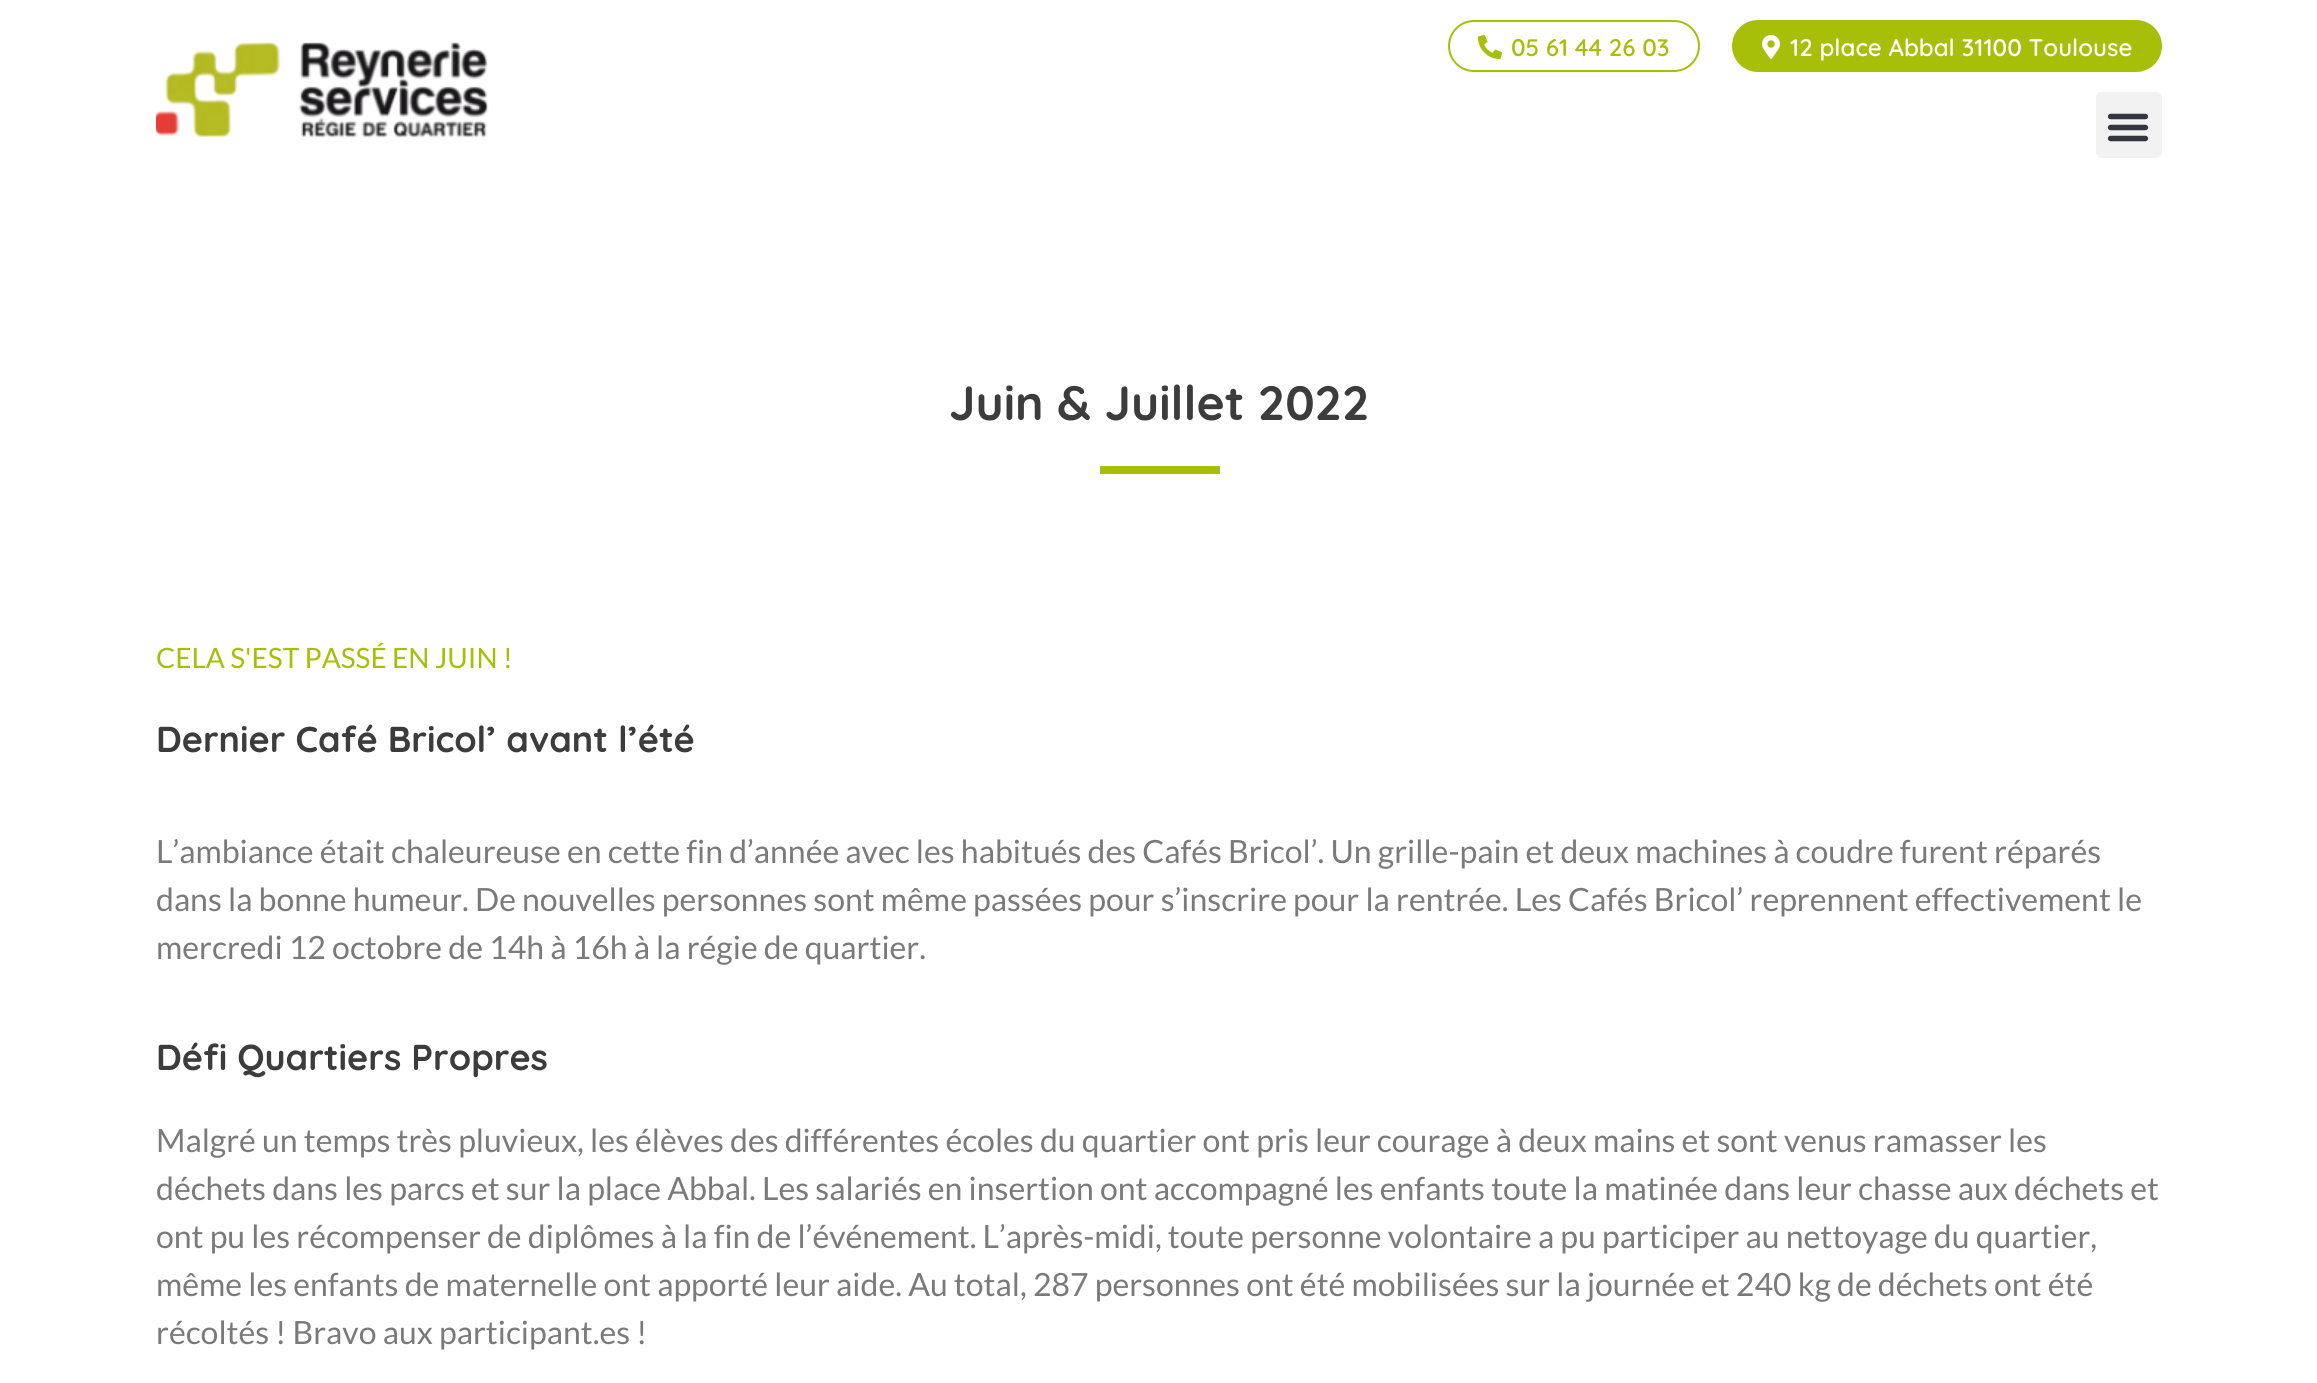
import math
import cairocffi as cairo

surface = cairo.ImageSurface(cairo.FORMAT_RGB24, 2317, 1383)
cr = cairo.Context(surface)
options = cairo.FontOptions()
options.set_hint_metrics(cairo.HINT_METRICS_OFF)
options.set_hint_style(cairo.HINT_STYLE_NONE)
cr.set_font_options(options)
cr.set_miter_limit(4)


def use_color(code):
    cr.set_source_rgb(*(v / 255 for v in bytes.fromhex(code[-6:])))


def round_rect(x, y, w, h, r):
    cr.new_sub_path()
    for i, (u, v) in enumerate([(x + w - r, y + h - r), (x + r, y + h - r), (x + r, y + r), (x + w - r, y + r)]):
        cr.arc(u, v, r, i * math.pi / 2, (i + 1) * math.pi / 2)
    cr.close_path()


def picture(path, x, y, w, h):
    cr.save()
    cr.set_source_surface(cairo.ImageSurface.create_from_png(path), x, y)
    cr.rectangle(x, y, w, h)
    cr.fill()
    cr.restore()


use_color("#ffffff")
cr.paint()
picture("img1.png", 156, 42, 333, 96)
round_rect(1449, 21, 250, 50, 25)
use_color("#a8bf09")
cr.stroke()
picture("img2.png", 1478, 35, 24, 24)
cr.select_font_face("Quicksand SemiBold")
cr.set_font_size(24)
cr.move_to(1511, 56)
cr.show_text("05 61 44 26 03")
round_rect(1733, 21, 428, 50, 25)
cr.fill_preserve()
cr.stroke()
picture("img3.png", 1762, 35, 18, 24)
use_color("#ffffff")
cr.move_to(1790, 56)
cr.show_text("12 place Abbal 31100 Toulouse")
use_color("#f2f2f2")
round_rect(2096, 92, 66, 66, 6)
cr.fill()
picture("img4.png", 2107, 113, 42, 29)
cr.select_font_face("Quicksand", cairo.FONT_SLANT_NORMAL, cairo.FONT_WEIGHT_BOLD)
cr.set_font_size(48)
use_color("#3c3c3c")
cr.move_to(949, 420)
cr.show_text("Juin & Juillet 2022")
use_color("#a8bf09")
cr.rectangle(1100, 466, 120, 8)
cr.fill()
cr.select_font_face("Lato")
cr.set_font_size(28)
cr.move_to(156, 668)
cr.show_text("CELA S'EST PASSÉ EN JUIN !")
cr.select_font_face("Quicksand", cairo.FONT_SLANT_NORMAL, cairo.FONT_WEIGHT_BOLD)
cr.set_font_size(36)
use_color("#3c3c3c")
cr.move_to(156, 752)
cr.show_text("Dernier Café Bricol’ avant l’été")
cr.select_font_face("Lato")
cr.set_font_size(32)
use_color("#7a7a7a")
cr.move_to(156, 863)
cr.show_text("L’ambiance était chaleureuse en cette fin d’année avec les habitués des Cafés Bricol’. Un grille-pain et deux machines à coudre furent réparés")
cr.move_to(156, 911)
cr.show_text("dans la bonne humeur. De nouvelles personnes sont même passées pour s’inscrire pour la rentrée. Les Cafés Bricol’ reprennent effectivement le")
cr.move_to(156, 959)
cr.show_text("mercredi 12 octobre de 14h à 16h à la régie de quartier.")
cr.select_font_face("Quicksand", cairo.FONT_SLANT_NORMAL, cairo.FONT_WEIGHT_BOLD)
cr.set_font_size(36)
use_color("#3c3c3c")
cr.move_to(156, 1070)
cr.show_text("Défi Quartiers Propres")
cr.select_font_face("Lato")
cr.set_font_size(32)
use_color("#7a7a7a")
cr.move_to(156, 1152)
cr.show_text("Malgré un temps très pluvieux, les élèves des différentes écoles du quartier ont pris leur courage à deux mains et sont venus ramasser les")
cr.move_to(156, 1200)
cr.show_text("déchets dans les parcs et sur la place Abbal. Les salariés en insertion ont accompagné les enfants toute la matinée dans leur chasse aux déchets et")
cr.move_to(156, 1248)
cr.show_text("ont pu les récompenser de diplômes à la fin de l’événement. L’après-midi, toute personne volontaire a pu participer au nettoyage du quartier,")
cr.move_to(156, 1296)
cr.show_text("même les enfants de maternelle ont apporté leur aide. Au total, 287 personnes ont été mobilisées sur la journée et 240 kg de déchets ont été")
cr.move_to(156, 1344)
cr.show_text("récoltés ! Bravo aux participant.es !")
surface.write_to_png("result.png")
